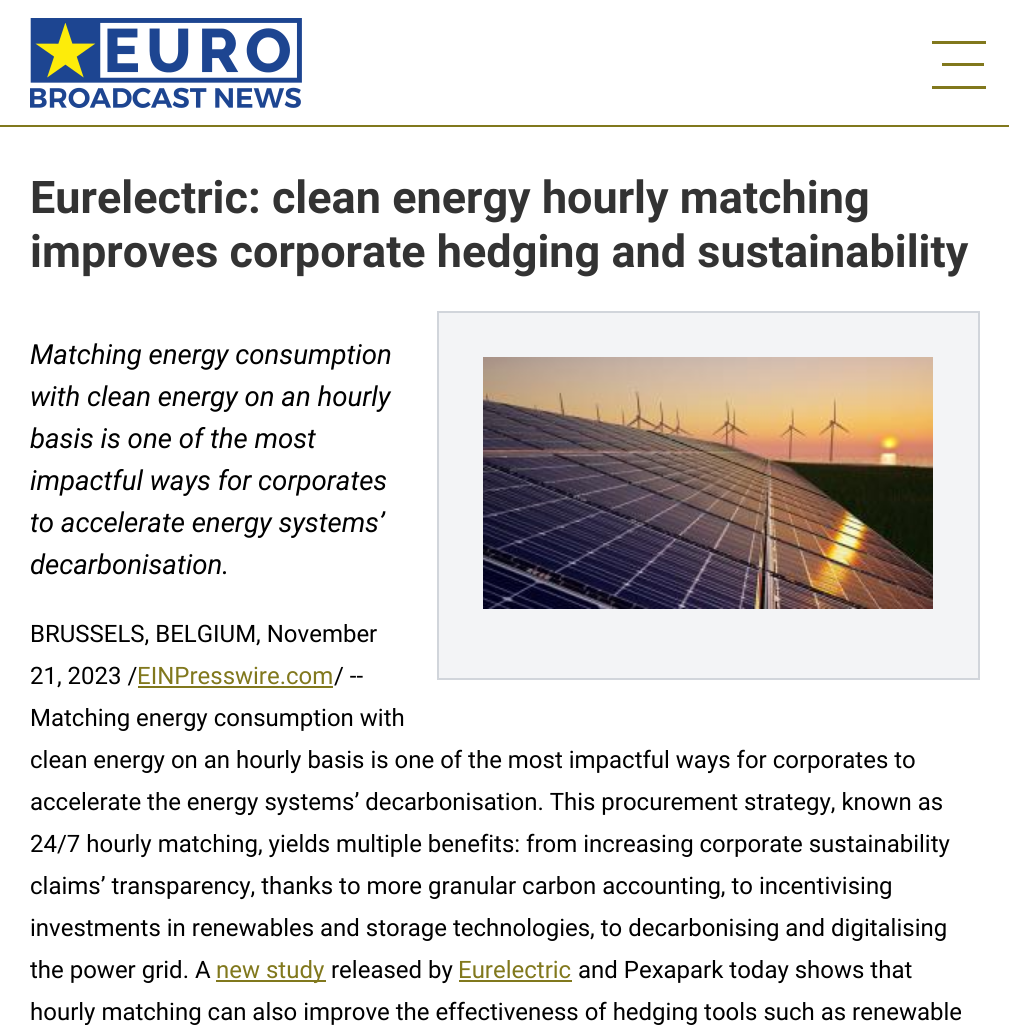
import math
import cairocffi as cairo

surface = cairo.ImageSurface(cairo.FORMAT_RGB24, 1009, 1025)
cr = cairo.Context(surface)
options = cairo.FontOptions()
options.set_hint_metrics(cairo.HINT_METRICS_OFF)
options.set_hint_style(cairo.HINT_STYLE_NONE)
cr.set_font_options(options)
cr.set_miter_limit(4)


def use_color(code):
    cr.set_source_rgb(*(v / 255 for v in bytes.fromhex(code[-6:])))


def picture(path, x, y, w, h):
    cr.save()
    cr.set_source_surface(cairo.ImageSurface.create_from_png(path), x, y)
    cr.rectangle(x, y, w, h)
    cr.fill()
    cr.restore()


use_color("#ffffff")
cr.paint()
picture("img1.png", 30, 18, 272, 90)
use_color("#81781d")
cr.rectangle(932, 41, 54, 3)
cr.fill()
cr.rectangle(942, 63, 42, 3)
cr.fill()
cr.rectangle(932, 86, 54, 3)
cr.fill()
cr.rectangle(0, 125, 1009, 2)
cr.fill()
cr.select_font_face("Roboto", cairo.FONT_SLANT_NORMAL, cairo.FONT_WEIGHT_BOLD)
cr.set_font_size(45)
use_color("#333333")
cr.move_to(30, 213)
cr.show_text("Eurelectric: clean energy hourly matching")
cr.move_to(30, 267)
cr.show_text("improves corporate hedging and sustainability")
cr.select_font_face("Roboto", cairo.FONT_SLANT_ITALIC)
cr.set_font_size(27.6)
use_color("#000000")
cr.move_to(30, 364)
cr.show_text("Matching energy consumption")
cr.move_to(30, 406)
cr.show_text("with clean energy on an hourly")
cr.move_to(30, 448)
cr.show_text("basis is one of the most")
cr.move_to(30, 490)
cr.show_text("impactful ways for corporates")
cr.move_to(30, 532)
cr.show_text("to accelerate energy systems’")
cr.move_to(30, 574)
cr.show_text("decarbonisation.")
use_color("#f3f4f6")
cr.rectangle(438, 312, 541, 367)
cr.fill_preserve()
use_color("#d1d5db")
cr.stroke()
picture("img2.png", 483, 357, 450, 252)
cr.select_font_face("Roboto")
cr.set_font_size(24)
use_color("#000000")
cr.move_to(30, 642)
cr.show_text("BRUSSELS, BELGIUM, November")
cr.move_to(30, 684)
cr.show_text("21, 2023 /")
use_color("#81781d")
cr.move_to(137, 684)
cr.show_text("EINPresswire.com")
cr.rectangle(138, 686, 195, 2)
cr.fill()
use_color("#000000")
cr.move_to(334, 684)
cr.show_text("/ --")
cr.move_to(30, 726)
cr.show_text("Matching energy consumption with")
cr.move_to(30, 768)
cr.show_text("clean energy on an hourly basis is one of the most impactful ways for corporates to")
cr.move_to(30, 810)
cr.show_text("accelerate the energy systems’ decarbonisation. This procurement strategy, known as")
cr.move_to(30, 852)
cr.show_text("24/7 hourly matching, yields multiple benefits: from increasing corporate sustainability")
cr.move_to(30, 894)
cr.show_text("claims’ transparency, thanks to more granular carbon accounting, to incentivising")
cr.move_to(30, 936)
cr.show_text("investments in renewables and storage technologies, to decarbonising and digitalising")
cr.move_to(30, 978)
cr.show_text("the power grid. A")
use_color("#81781d")
cr.rectangle(216, 980, 110, 2)
cr.fill()
cr.move_to(216, 978)
cr.show_text("new study")
use_color("#000000")
cr.move_to(331, 978)
cr.show_text("released by")
use_color("#81781d")
cr.move_to(458, 978)
cr.show_text("Eurelectric")
cr.rectangle(459, 980, 113, 2)
cr.fill()
use_color("#000000")
cr.move_to(578, 978)
cr.show_text("and Pexapark today shows that")
cr.move_to(30, 1020)
cr.show_text("hourly matching can also improve the effectiveness of hedging tools such as renewable")
surface.write_to_png("result.png")
